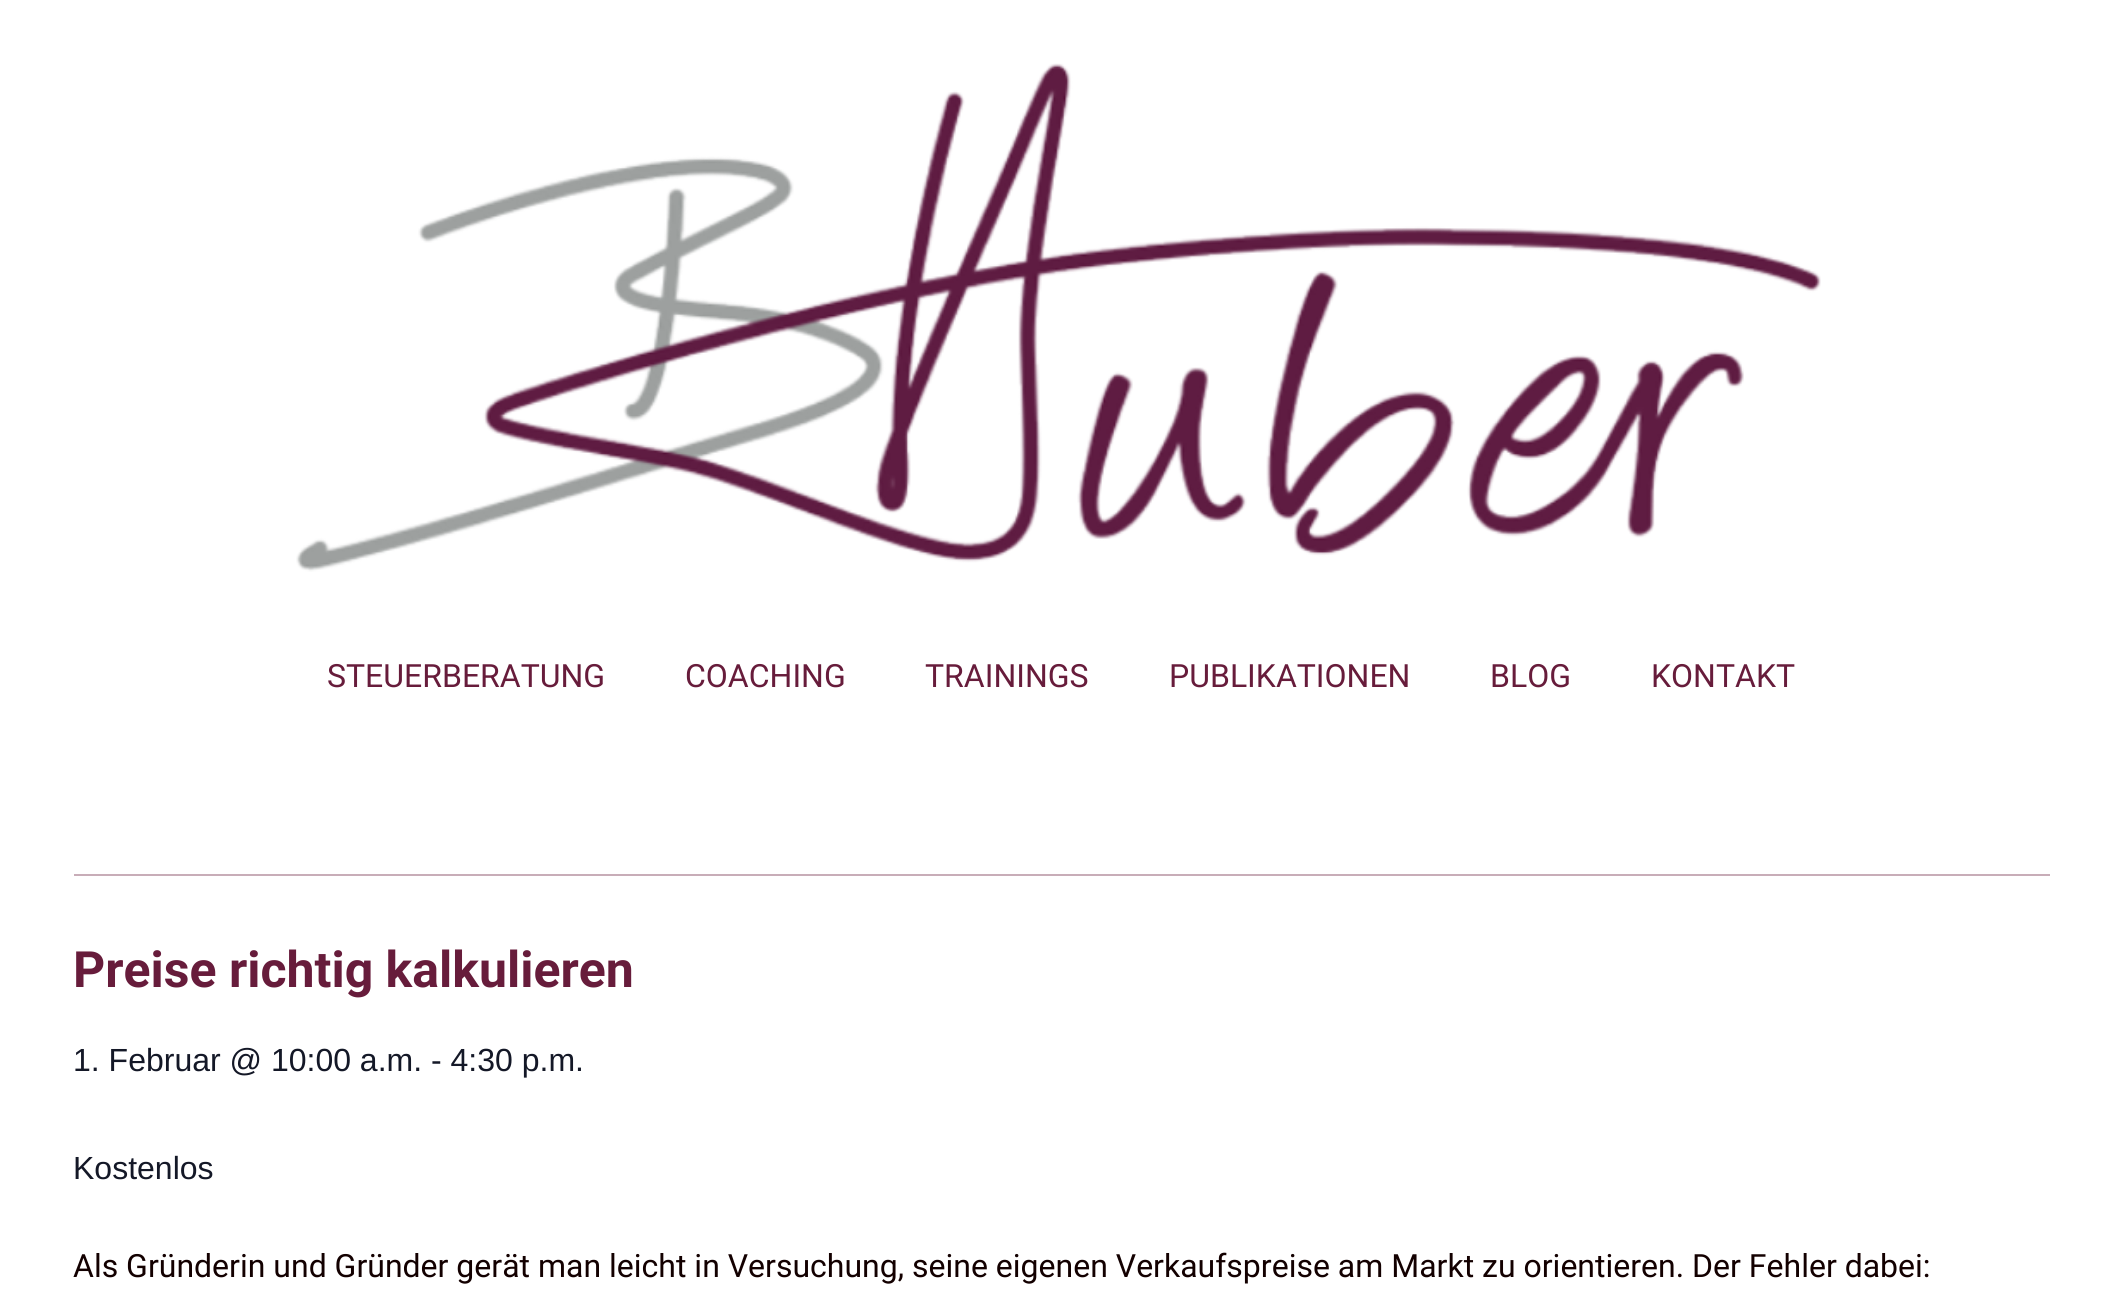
import math
import cairocffi as cairo

surface = cairo.ImageSurface(cairo.FORMAT_RGB24, 2121, 1306)
cr = cairo.Context(surface)
options = cairo.FontOptions()
options.set_hint_metrics(cairo.HINT_METRICS_OFF)
options.set_hint_style(cairo.HINT_STYLE_NONE)
cr.set_font_options(options)
cr.set_miter_limit(4)


def use_color(code):
    cr.set_source_rgb(*(v / 255 for v in bytes.fromhex(code[-6:])))


def picture(path, x, y, w, h):
    cr.save()
    cr.set_source_surface(cairo.ImageSurface.create_from_png(path), x, y)
    cr.rectangle(x, y, w, h)
    cr.fill()
    cr.restore()


use_color("#ffffff")
cr.paint()
picture("img1.png", 296, 63, 1525, 509)
cr.select_font_face("Roboto")
cr.set_font_size(32)
use_color("#671c3b")
cr.move_to(327, 687)
cr.show_text("STEUERBERATUNG")
cr.move_to(685, 687)
cr.show_text("COACHING")
cr.move_to(925, 687)
cr.show_text("TRAININGS")
cr.move_to(1169, 687)
cr.show_text("PUBLIKATIONEN")
cr.move_to(1490, 687)
cr.show_text("BLOG")
cr.move_to(1651, 687)
cr.show_text("KONTAKT")
use_color("#c8adb8")
cr.rectangle(74, 874, 1976, 2)
cr.fill()
cr.select_font_face("Roboto", cairo.FONT_SLANT_NORMAL, cairo.FONT_WEIGHT_BOLD)
cr.set_font_size(50)
use_color("#671c3b")
cr.move_to(73, 987)
cr.show_text("Preise richtig kalkulieren")
cr.select_font_face("Liberation Sans")
cr.set_font_size(32)
use_color("#141827")
cr.move_to(73, 1071)
cr.show_text("1. Februar @ 10:00 a.m. - 4:30 p.m.")
cr.move_to(73, 1179)
cr.show_text("Kostenlos")
cr.select_font_face("Roboto")
use_color("#130000")
cr.move_to(73, 1277)
cr.show_text("Als Gründerin und Gründer gerät man leicht in Versuchung, seine eigenen Verkaufspreise am Markt zu orientieren. Der Fehler dabei:")
surface.write_to_png("result.png")
